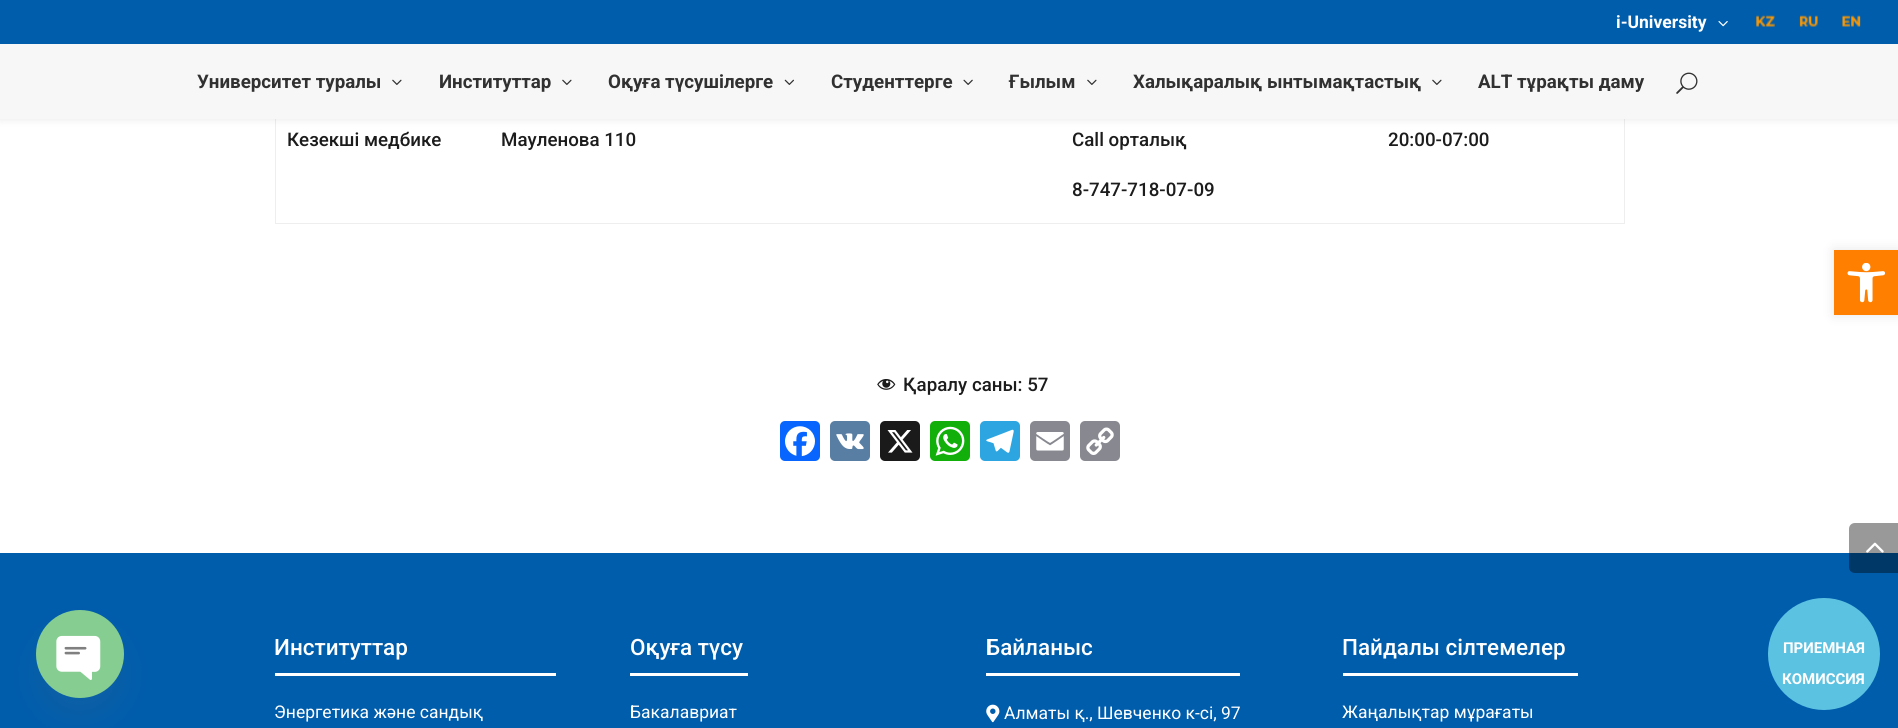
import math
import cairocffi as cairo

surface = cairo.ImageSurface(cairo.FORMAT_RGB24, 1898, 728)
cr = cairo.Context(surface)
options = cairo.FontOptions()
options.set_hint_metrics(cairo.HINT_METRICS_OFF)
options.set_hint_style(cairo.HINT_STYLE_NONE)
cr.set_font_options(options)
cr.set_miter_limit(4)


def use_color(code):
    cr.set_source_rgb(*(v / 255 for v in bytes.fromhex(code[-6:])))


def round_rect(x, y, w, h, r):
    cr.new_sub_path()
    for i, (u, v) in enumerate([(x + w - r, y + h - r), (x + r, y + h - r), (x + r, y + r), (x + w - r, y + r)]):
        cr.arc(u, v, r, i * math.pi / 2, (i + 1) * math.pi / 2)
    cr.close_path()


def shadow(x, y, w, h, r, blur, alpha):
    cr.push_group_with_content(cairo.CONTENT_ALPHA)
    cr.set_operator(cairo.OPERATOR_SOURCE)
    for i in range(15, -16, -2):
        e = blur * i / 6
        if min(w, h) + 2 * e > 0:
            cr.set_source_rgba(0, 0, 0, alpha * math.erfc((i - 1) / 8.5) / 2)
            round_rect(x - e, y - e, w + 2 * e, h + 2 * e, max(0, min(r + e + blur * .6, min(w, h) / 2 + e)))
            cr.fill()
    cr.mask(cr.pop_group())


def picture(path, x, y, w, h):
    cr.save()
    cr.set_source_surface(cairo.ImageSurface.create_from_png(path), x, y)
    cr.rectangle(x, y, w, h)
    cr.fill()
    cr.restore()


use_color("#ffffff")
cr.paint()
use_color("#eeeeee")
cr.rectangle(1624, 119, 1, 105)
cr.fill()
cr.rectangle(275, 223, 1350, 1)
cr.fill()
cr.rectangle(275, 119, 1, 105)
cr.fill()
use_color("#000000")
shadow(0, 44, 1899, 75, 0, 4.5, 0.1)
use_color("#005dac")
cr.rectangle(0, 0, 1898, 44)
cr.fill()
cr.select_font_face("Roboto", cairo.FONT_SLANT_NORMAL, cairo.FONT_WEIGHT_BOLD)
cr.set_font_size(17.5)
use_color("#ffffff")
cr.move_to(1616, 28)
cr.show_text("i-University")
picture("img1.png", 1718, 21, 10, 6)
picture("img2.png", 1756, 15, 19, 12)
picture("img3.png", 1799, 15, 19, 12)
picture("img4.png", 1842, 15, 19, 12)
use_color("#f7f7f7")
cr.rectangle(0, 44, 1898, 75)
cr.fill()
cr.set_font_size(18.75)
use_color("#313131")
cr.move_to(197, 88)
cr.show_text("Университет туралы")
picture("img5.png", 392, 79, 10, 6)
cr.move_to(439, 88)
cr.show_text("Институттар")
picture("img5.png", 562, 79, 10, 6)
cr.move_to(608, 88)
cr.show_text("Оқуға түсушілерге")
picture("img6.png", 784, 79, 10, 6)
cr.move_to(831, 88)
cr.show_text("Студенттерге")
picture("img7.png", 963, 79, 10, 6)
cr.move_to(1009, 88)
cr.show_text("Ғылым")
picture("img5.png", 1087, 79, 10, 6)
cr.move_to(1133, 88)
cr.show_text("Халықаралық ынтымақтастық")
picture("img5.png", 1432, 79, 10, 6)
cr.move_to(1478, 88)
cr.show_text("ALT тұрақты даму")
picture("img8.png", 1676, 72, 22, 22)
cr.select_font_face("Roboto Medium")
use_color("#1c1c1c")
cr.move_to(287, 146)
cr.show_text("Кезекші медбике")
cr.move_to(501, 146)
cr.show_text("Мауленова 110")
cr.move_to(1072, 146)
cr.show_text("Саll орталық")
cr.move_to(1072, 196)
cr.show_text("8-747-718-07-09")
cr.move_to(1388, 146)
cr.show_text("20:00-07:00")
picture("img9.png", 877, 379, 19, 11)
cr.move_to(903, 391)
cr.show_text("Қаралу саны: 57")
use_color("#0866ff")
round_rect(780, 421, 40, 40, 5)
cr.fill()
picture("img10.png", 785, 426, 30, 31)
use_color("#587ea3")
round_rect(830, 421, 40, 40, 5)
cr.fill()
picture("img11.png", 836, 433, 28, 17)
use_color("#1a1a1a")
round_rect(880, 421, 40, 40, 5)
cr.fill()
picture("img12.png", 887, 430, 26, 23)
use_color("#12af0a")
round_rect(930, 421, 40, 40, 5)
cr.fill()
picture("img13.png", 935, 426, 30, 30)
use_color("#2ca5e0")
round_rect(980, 421, 40, 40, 5)
cr.fill()
picture("img14.png", 986, 429, 28, 24)
use_color("#888990")
round_rect(1030, 421, 40, 40, 5)
cr.fill()
picture("img15.png", 1036, 432, 28, 19)
round_rect(1080, 421, 40, 40, 5)
cr.fill()
picture("img16.png", 1086, 427, 28, 28)
use_color("#005dac")
cr.rectangle(0, 553, 1898, 175)
cr.fill()
cr.set_source_rgba(0, 0, 0, 0.4)
cr.new_path()
cr.move_to(1855, 523)
cr.line_to(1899, 523)
cr.line_to(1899, 573)
cr.line_to(1855, 573)
cr.curve_to(1851.5, 573, 1849, 570.5, 1849, 567)
cr.line_to(1849, 529)
cr.curve_to(1849, 525.5, 1851.5, 523, 1855, 523)
cr.close_path()
cr.fill()
picture("img17.png", 1866, 542, 18, 11)
use_color("#ffffff")
cr.rectangle(275, 673, 281, 3)
cr.fill()
cr.set_font_size(22.5)
cr.move_to(274, 655)
cr.show_text("Институттар")
cr.select_font_face("Roboto")
cr.set_font_size(17.5)
cr.move_to(274, 718)
cr.show_text("Энергетика және сандық")
cr.rectangle(630, 673, 118, 3)
cr.fill()
cr.select_font_face("Roboto Medium")
cr.set_font_size(22.5)
cr.move_to(630, 655)
cr.show_text("Оқуға түсу")
cr.select_font_face("Roboto")
cr.set_font_size(17.5)
cr.move_to(630, 718)
cr.show_text("Бакалавриат")
cr.rectangle(986, 673, 254, 3)
cr.fill()
cr.select_font_face("Roboto Medium")
cr.set_font_size(22.5)
cr.move_to(986, 655)
cr.show_text("Байланыс")
picture("img18.png", 986, 704, 14, 19)
cr.select_font_face("Roboto")
cr.set_font_size(17.5)
cr.move_to(1004, 719)
cr.show_text("Алматы қ., Шевченко к-сі, 97")
cr.rectangle(1343, 673, 235, 3)
cr.fill()
cr.select_font_face("Roboto Medium")
cr.set_font_size(22.5)
cr.move_to(1342, 655)
cr.show_text("Пайдалы сілтемелер")
cr.select_font_face("Roboto")
cr.set_font_size(17.5)
cr.move_to(1342, 718)
cr.show_text("Жаңалықтар мұрағаты")
use_color("#000000")
shadow(1834, 250, 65, 65, 0, 6, 0.1)
use_color("#ff7f00")
cr.rectangle(1834, 250, 64, 65)
cr.fill()
picture("img19.png", 1847, 263, 38, 40)
use_color("#49687e")
shadow(36, 630, 88, 88, 44, 15, 0.16)
picture("img20.png", 36, 610, 88, 88)
use_color("#5cc2e2")
cr.arc(1824, 654, 56, 0, 2 * math.pi)
cr.fill()
cr.select_font_face("Roboto", cairo.FONT_SLANT_NORMAL, cairo.FONT_WEIGHT_BOLD)
cr.set_font_size(15)
use_color("#ffffff")
cr.move_to(1783, 653)
cr.show_text("ПРИЕМНАЯ")
cr.move_to(1782, 684)
cr.show_text("КОМИССИЯ")
surface.write_to_png("result.png")
